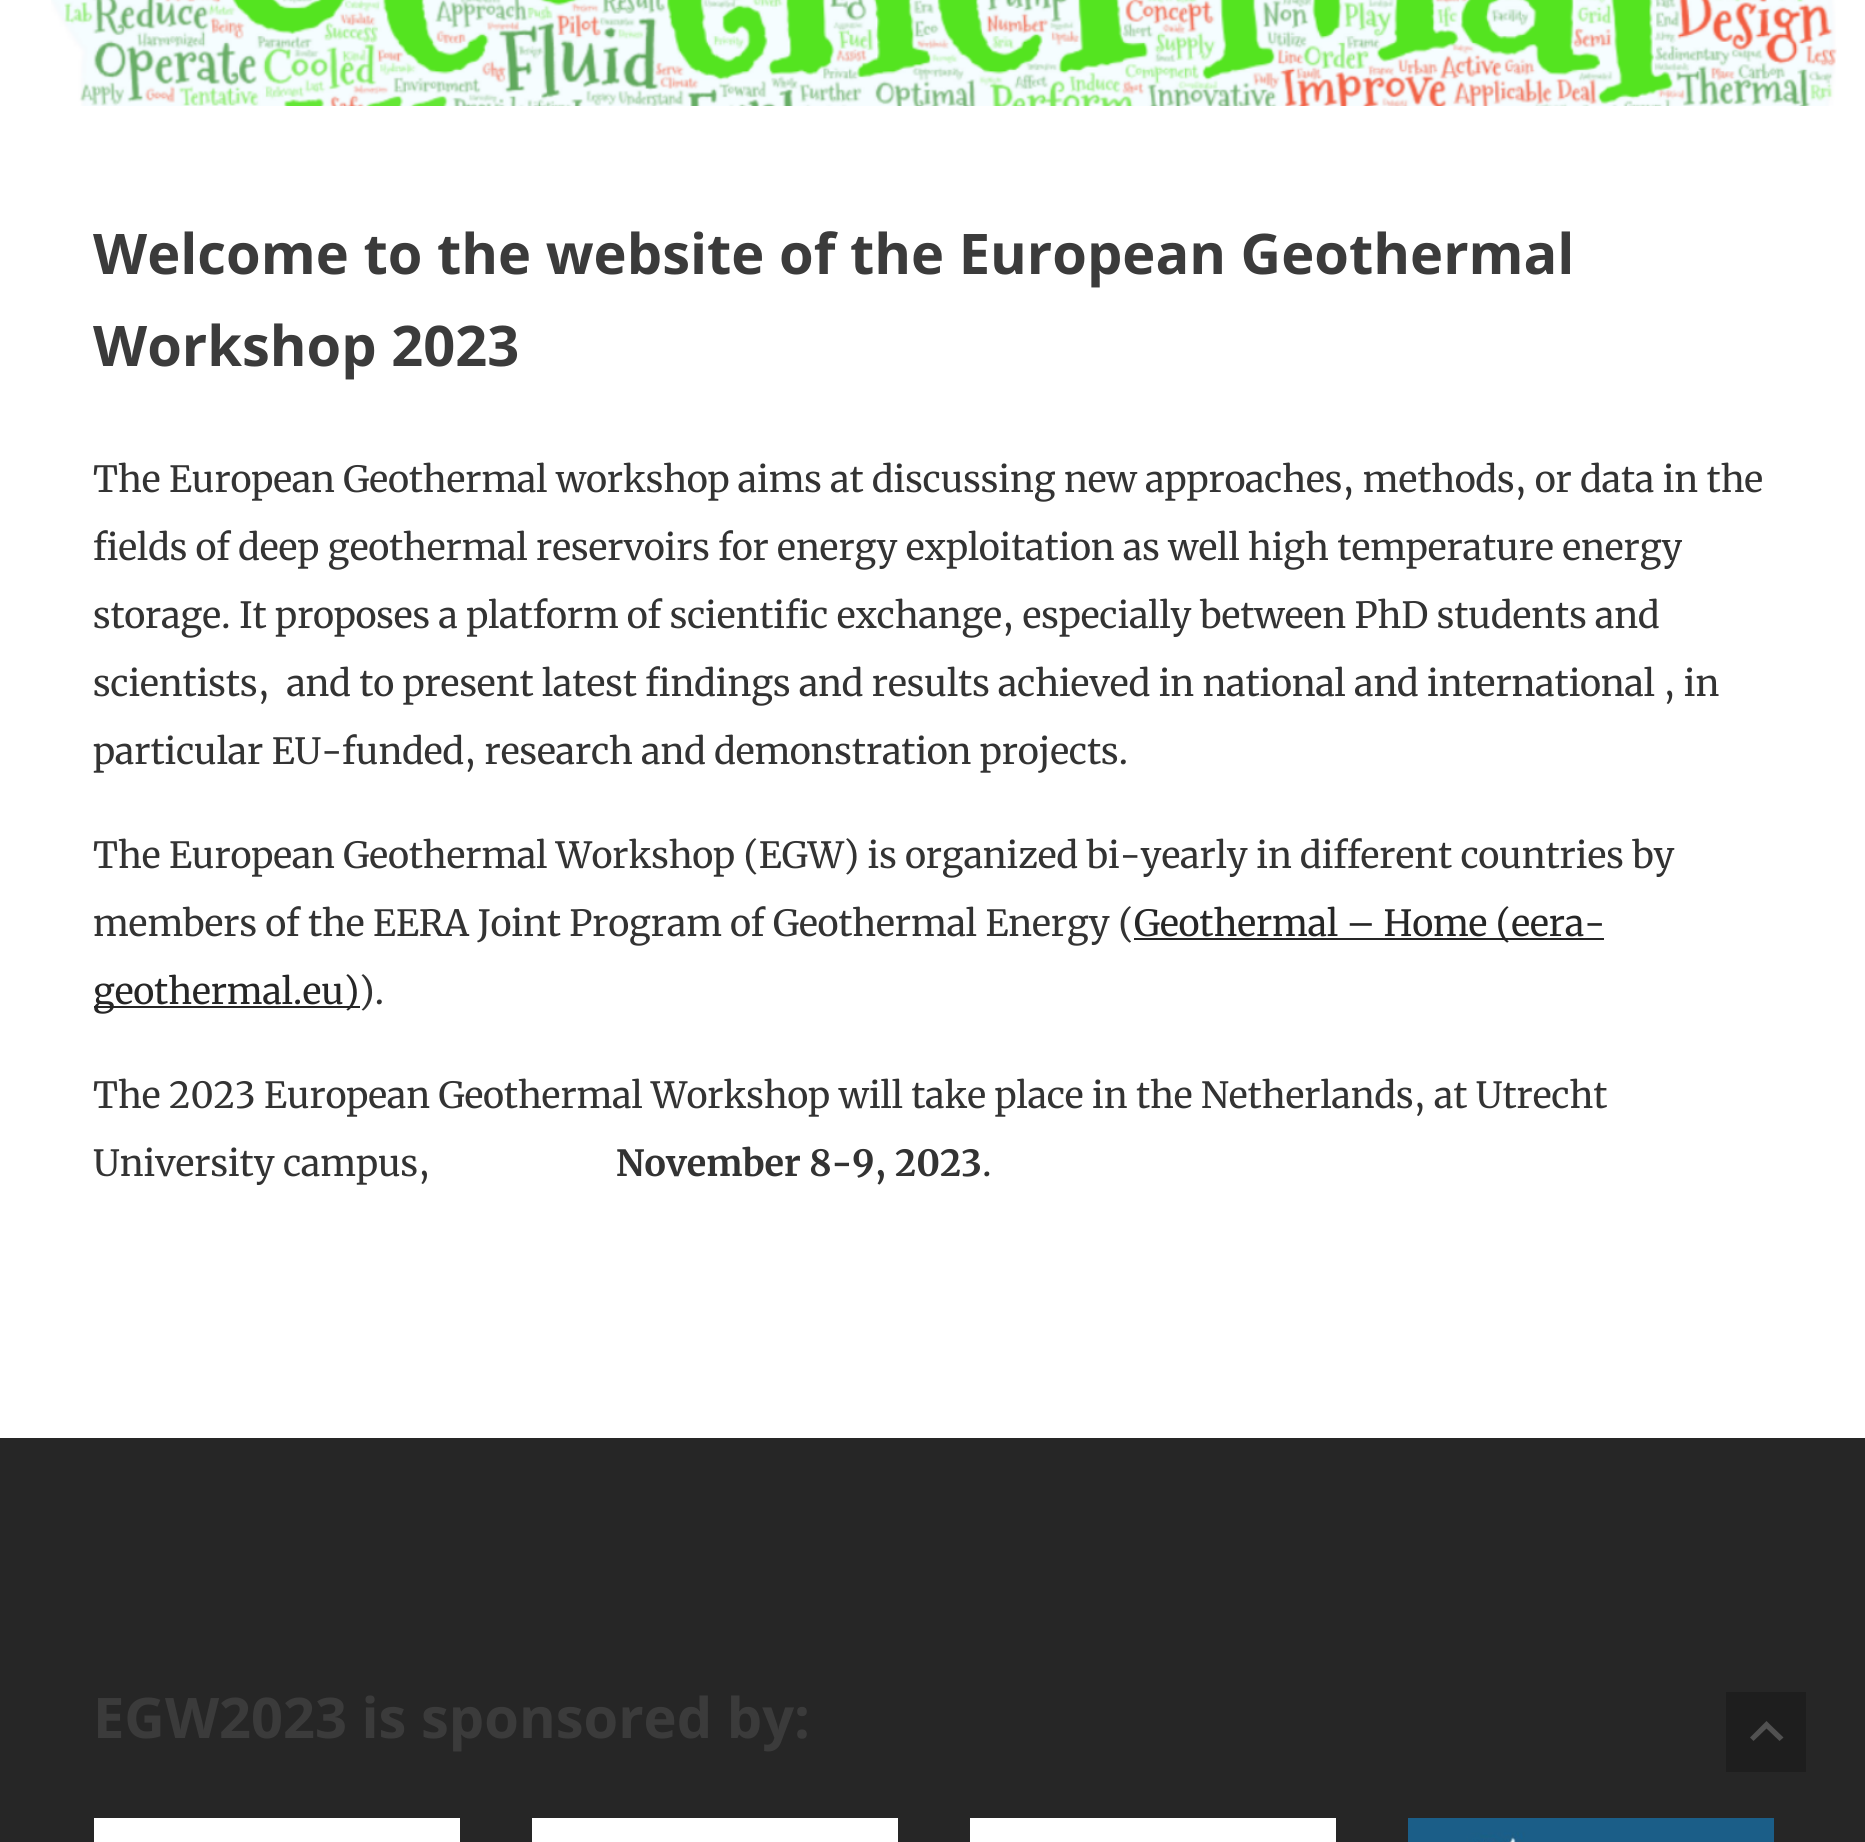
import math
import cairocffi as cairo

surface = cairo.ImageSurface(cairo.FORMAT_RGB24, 1865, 1842)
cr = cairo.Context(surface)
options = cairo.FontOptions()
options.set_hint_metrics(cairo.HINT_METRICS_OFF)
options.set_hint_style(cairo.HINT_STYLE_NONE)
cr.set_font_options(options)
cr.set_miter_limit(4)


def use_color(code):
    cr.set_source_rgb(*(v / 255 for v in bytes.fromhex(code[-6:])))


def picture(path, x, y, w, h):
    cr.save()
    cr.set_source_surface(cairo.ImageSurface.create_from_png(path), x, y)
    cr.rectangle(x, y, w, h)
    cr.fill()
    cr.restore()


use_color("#ffffff")
cr.paint()
picture("img1.png", 51, 0, 1786, 106)
cr.select_font_face("Open Sans", cairo.FONT_SLANT_NORMAL, cairo.FONT_WEIGHT_BOLD)
cr.set_font_size(56)
use_color("#3b3b3b")
cr.move_to(93, 274)
cr.show_text("Welcome to the website of the European Geothermal")
cr.move_to(93, 366)
cr.show_text("Workshop 2023")
cr.select_font_face("Merriweather")
cr.set_font_size(36)
use_color("#333333")
cr.move_to(93, 492)
cr.show_text("The European Geothermal workshop aims at discussing new approaches, methods, or data in the")
cr.move_to(93, 560)
cr.show_text("fields of deep geothermal reservoirs for energy exploitation as well high temperature energy")
cr.move_to(93, 628)
cr.show_text("storage. It proposes a platform of scientific exchange, especially between PhD students and")
cr.move_to(93, 696)
cr.show_text("scientists,  and to present latest findings and results achieved in national and international , in")
cr.move_to(93, 764)
cr.show_text("particular EU-funded, research and demonstration projects.")
cr.move_to(93, 868)
cr.show_text("The European Geothermal Workshop (EGW) is organized bi-yearly in different countries by")
cr.move_to(93, 936)
cr.show_text("members of the EERA Joint Program of Geothermal Energy (")
use_color("#262626")
cr.rectangle(1134, 938, 470, 2)
cr.fill()
cr.move_to(1134, 936)
cr.show_text("Geothermal – Home (eera-")
cr.rectangle(94, 1006, 266, 2)
cr.fill()
cr.move_to(93, 1004)
cr.show_text("geothermal.eu)")
use_color("#333333")
cr.move_to(359, 1004)
cr.show_text(").")
cr.move_to(93, 1108)
cr.show_text("The 2023 European Geothermal Workshop will take place in the Netherlands, at Utrecht")
cr.move_to(93, 1176)
cr.show_text("University campus,")
cr.select_font_face("Merriweather", cairo.FONT_SLANT_NORMAL, cairo.FONT_WEIGHT_BOLD)
cr.move_to(616, 1176)
cr.show_text("November 8-9, 2023")
cr.select_font_face("Merriweather")
cr.move_to(982, 1176)
cr.show_text(".")
use_color("#262626")
cr.rectangle(0, 1438, 1865, 404)
cr.fill()
cr.select_font_face("Open Sans", cairo.FONT_SLANT_NORMAL, cairo.FONT_WEIGHT_BOLD)
cr.set_font_size(56)
use_color("#3b3b3b")
cr.move_to(93, 1738)
cr.show_text("EGW2023 is sponsored by:")
use_color("#ffffff")
cr.rectangle(94, 1818, 366, 24)
cr.fill()
cr.rectangle(532, 1818, 366, 24)
cr.fill()
cr.rectangle(970, 1818, 366, 24)
cr.fill()
picture("img2.png", 1408, 1818, 366, 24)
use_color("#1e1e1e")
cr.rectangle(1726, 1692, 80, 80)
cr.fill()
use_color("#515151")
cr.new_path()
cr.move_to(1770.5, 1725)
cr.line_to(1783.5, 1737.5)
cr.line_to(1779.5, 1741)
cr.line_to(1766.5, 1728.5)
cr.line_to(1753.5, 1741)
cr.line_to(1750, 1737.5)
cr.line_to(1766.5, 1721)
cr.close_path()
cr.fill()
surface.write_to_png("result.png")
